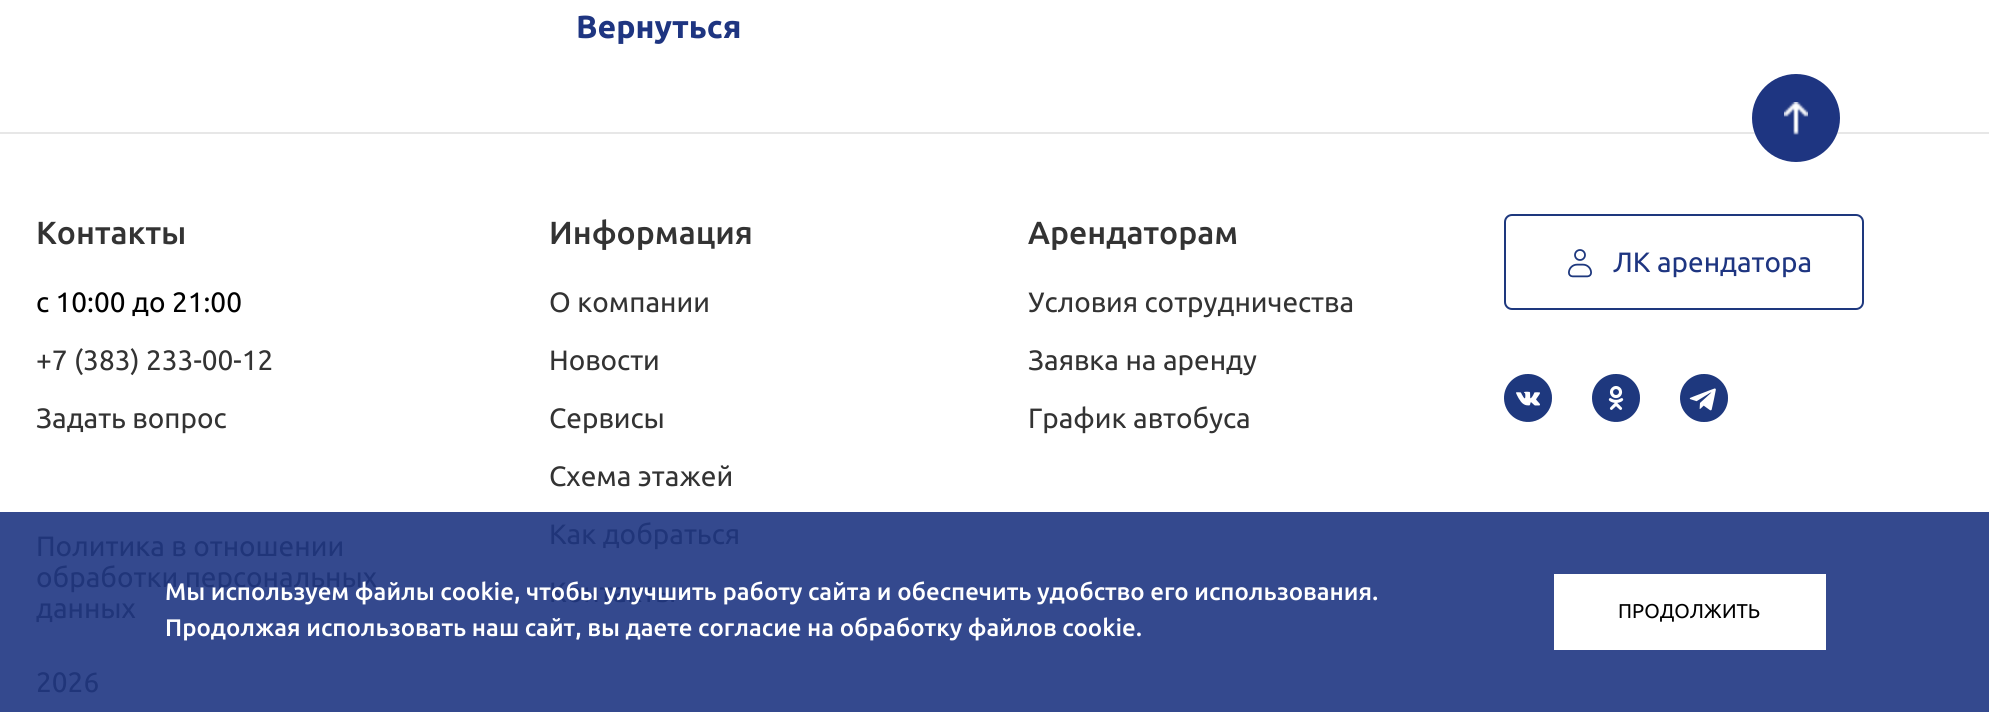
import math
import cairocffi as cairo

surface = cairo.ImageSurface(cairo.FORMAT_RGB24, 1989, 712)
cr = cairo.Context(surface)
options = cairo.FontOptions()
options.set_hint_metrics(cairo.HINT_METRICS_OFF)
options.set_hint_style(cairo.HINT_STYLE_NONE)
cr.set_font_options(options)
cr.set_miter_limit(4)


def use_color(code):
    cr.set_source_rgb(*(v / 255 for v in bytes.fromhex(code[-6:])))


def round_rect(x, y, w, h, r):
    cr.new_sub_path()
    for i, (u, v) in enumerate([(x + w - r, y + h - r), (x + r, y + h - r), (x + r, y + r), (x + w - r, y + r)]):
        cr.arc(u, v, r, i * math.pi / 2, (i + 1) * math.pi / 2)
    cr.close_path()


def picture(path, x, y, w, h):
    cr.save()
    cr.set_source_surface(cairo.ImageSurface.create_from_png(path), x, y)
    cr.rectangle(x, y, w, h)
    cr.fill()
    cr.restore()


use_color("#ffffff")
cr.paint()
use_color("#34498e")
cr.rectangle(0, 512, 1989, 200)
cr.fill()
cr.select_font_face("Ubuntu", cairo.FONT_SLANT_NORMAL, cairo.FONT_WEIGHT_BOLD)
cr.set_font_size(32)
use_color("#1e3581")
cr.move_to(576, 38)
cr.show_text("Вернуться")
use_color("#e7e7e7")
cr.rectangle(0, 132, 1989, 2)
cr.fill()
use_color("#1e3581")
cr.arc(1796, 118, 44, 0, 2 * math.pi)
cr.fill()
picture("img1.png", 1784, 102, 24, 33)
cr.select_font_face("Ubuntu Medium")
use_color("#333333")
cr.move_to(36, 244)
cr.show_text("Контакты")
cr.select_font_face("Ubuntu")
cr.set_font_size(28)
use_color("#000000")
cr.move_to(36, 312)
cr.show_text("c 10:00 до 21:00")
use_color("#333333")
cr.move_to(36, 370)
cr.show_text("+7 (383) 233-00-12")
cr.move_to(36, 428)
cr.show_text("Задать вопрос")
use_color("#203579")
cr.move_to(36, 556)
cr.show_text("Политика в отношении")
cr.move_to(36, 587)
cr.show_text("обработки персональных")
cr.move_to(36, 618)
cr.show_text("данных")
cr.move_to(36, 692)
cr.show_text("2026")
cr.select_font_face("Ubuntu Medium")
cr.set_font_size(32)
use_color("#333333")
cr.move_to(549, 244)
cr.show_text("Информация")
cr.select_font_face("Ubuntu")
cr.set_font_size(28)
cr.move_to(549, 312)
cr.show_text("О компании")
cr.move_to(549, 370)
cr.show_text("Новости")
cr.move_to(549, 428)
cr.show_text("Сервисы")
cr.move_to(549, 486)
cr.show_text("Схема этажей")
use_color("#203579")
cr.move_to(549, 544)
cr.show_text("Как добраться")
cr.move_to(549, 602)
cr.show_text("Контакты")
cr.select_font_face("Ubuntu Medium")
cr.set_font_size(32)
use_color("#333333")
cr.move_to(1028, 244)
cr.show_text("Арендаторам")
cr.select_font_face("Ubuntu")
cr.set_font_size(28)
cr.move_to(1028, 312)
cr.show_text("Условия сотрудничества")
cr.move_to(1028, 370)
cr.show_text("Заявка на аренду")
cr.move_to(1028, 428)
cr.show_text("График автобуса")
round_rect(1505, 215, 358, 94, 7)
use_color("#1e387e")
cr.stroke()
picture("img2.png", 1568, 249, 24, 29)
use_color("#1e3581")
cr.move_to(1613, 272)
cr.show_text("ЛК арендатора")
picture("img3.png", 1504, 374, 48, 48)
picture("img4.png", 1592, 374, 48, 48)
picture("img5.png", 1680, 374, 48, 48)
cr.select_font_face("Ubuntu Medium")
cr.set_font_size(24)
use_color("#ffffff")
cr.move_to(165, 600)
cr.show_text("Мы используем файлы cookie, чтобы улучшить работу сайта и обеспечить удобство его использования.")
cr.move_to(165, 636)
cr.show_text("Продолжая использовать наш сайт, вы даете согласие на обработку файлов cookie.")
cr.rectangle(1554, 574, 272, 76)
cr.fill()
cr.select_font_face("Ubuntu")
cr.set_font_size(20)
use_color("#000000")
cr.move_to(1618, 618)
cr.show_text("ПРОДОЛЖИТЬ")
surface.write_to_png("result.png")
